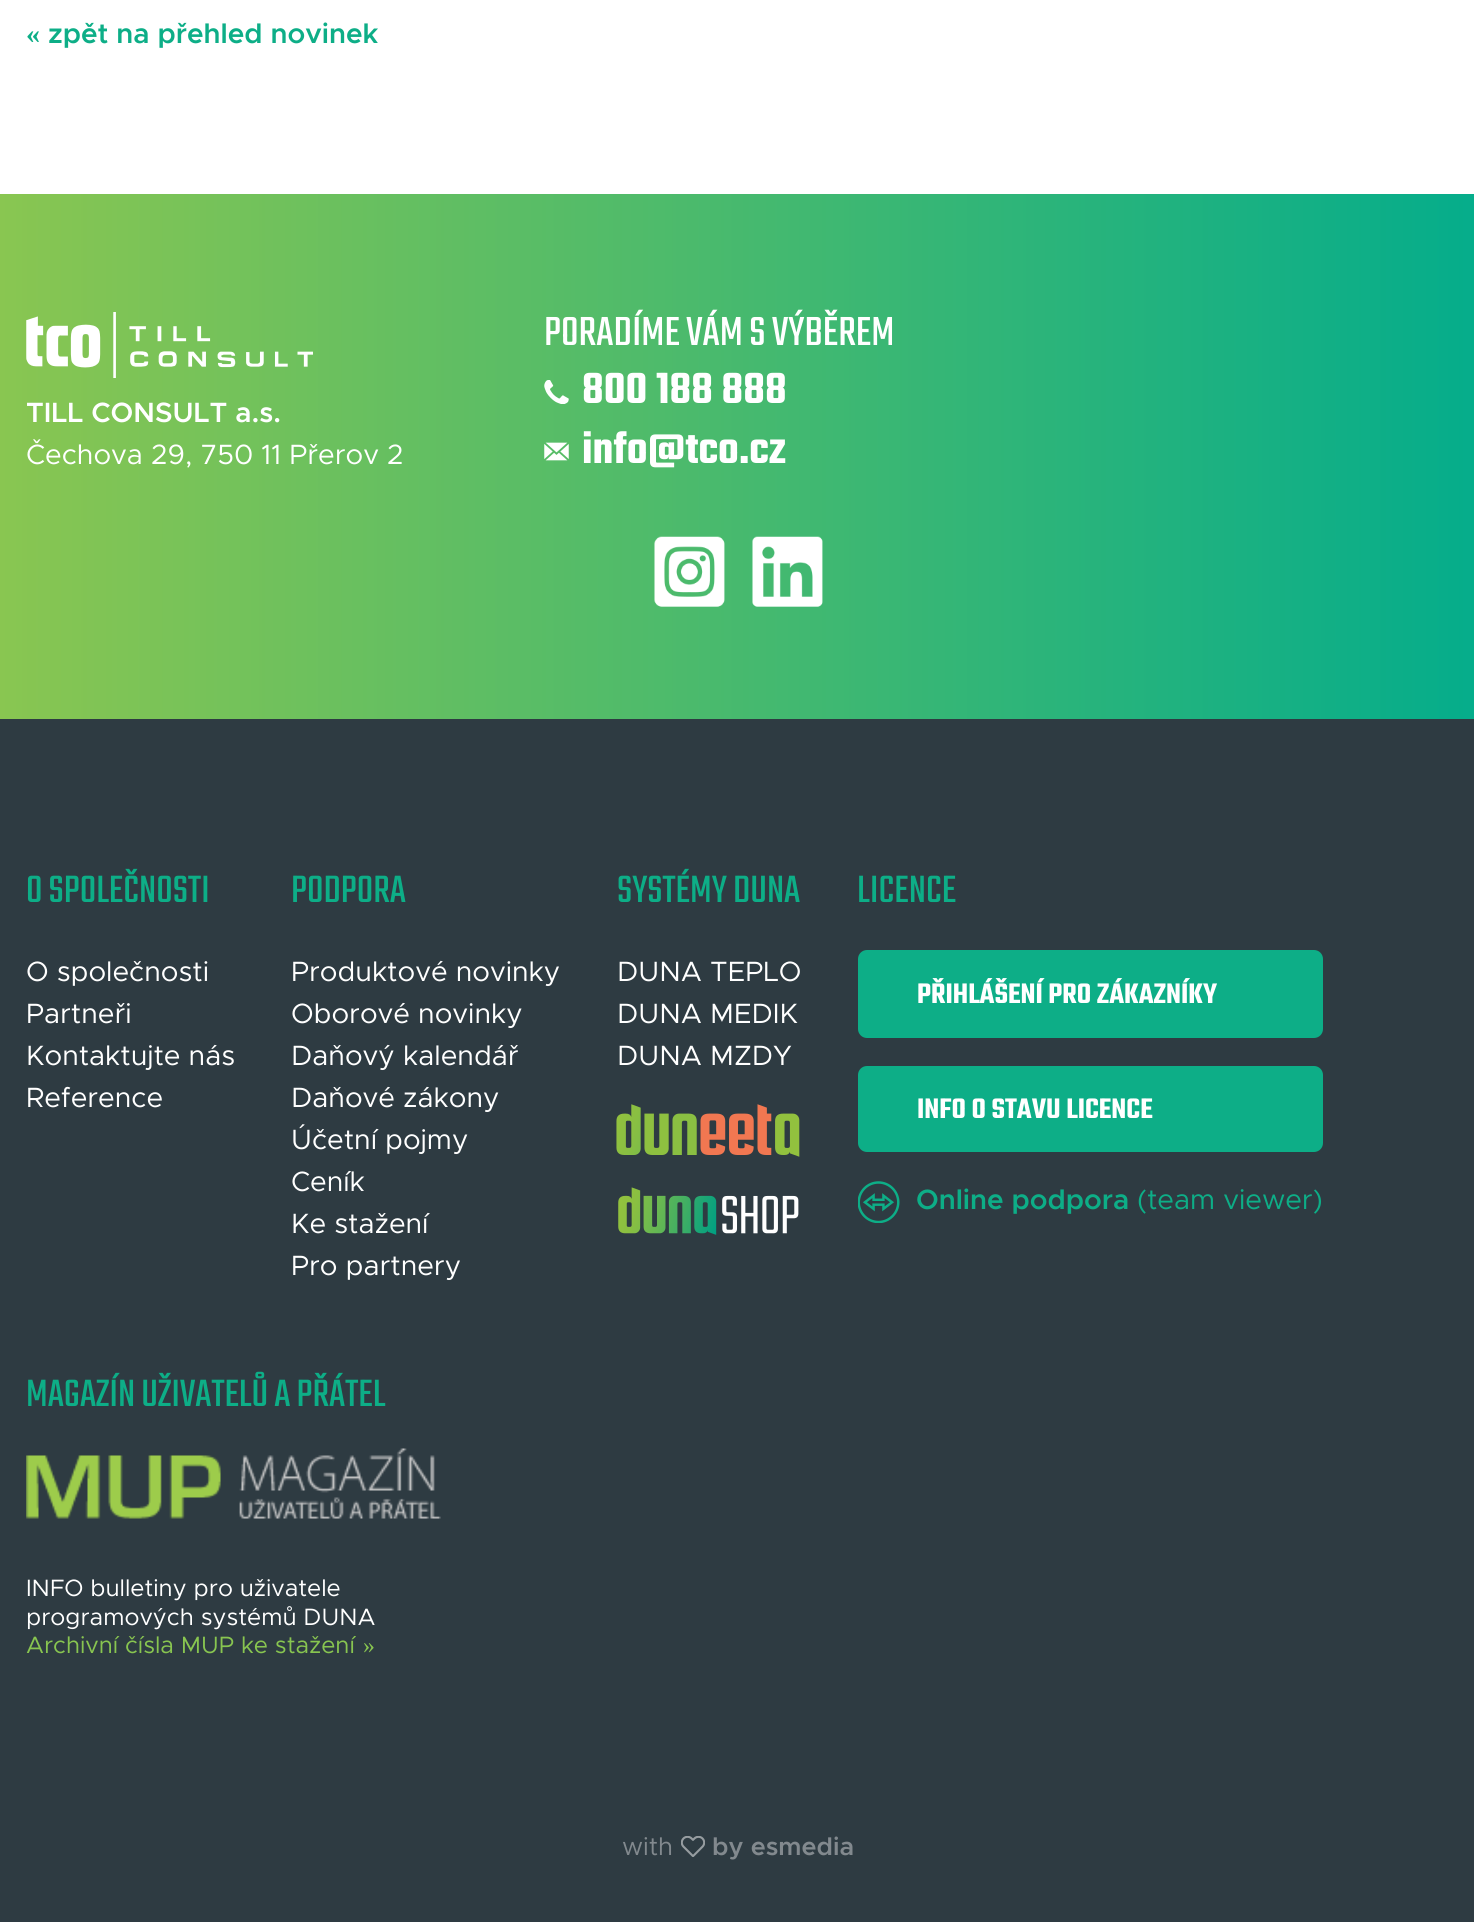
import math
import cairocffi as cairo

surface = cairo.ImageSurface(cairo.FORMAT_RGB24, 1474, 1922)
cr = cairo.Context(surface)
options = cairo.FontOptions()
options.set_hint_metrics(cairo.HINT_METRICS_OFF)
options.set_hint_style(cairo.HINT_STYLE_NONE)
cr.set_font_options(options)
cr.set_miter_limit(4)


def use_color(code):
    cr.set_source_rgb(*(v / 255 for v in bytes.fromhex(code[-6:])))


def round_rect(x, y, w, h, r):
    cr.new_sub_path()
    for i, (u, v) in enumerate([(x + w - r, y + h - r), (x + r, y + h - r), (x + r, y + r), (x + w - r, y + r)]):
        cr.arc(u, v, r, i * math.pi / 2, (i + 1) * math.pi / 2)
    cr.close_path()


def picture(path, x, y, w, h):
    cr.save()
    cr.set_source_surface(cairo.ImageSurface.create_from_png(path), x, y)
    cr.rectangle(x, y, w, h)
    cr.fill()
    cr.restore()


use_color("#ffffff")
cr.paint()
cr.select_font_face("Liberation Serif", cairo.FONT_SLANT_NORMAL, cairo.FONT_WEIGHT_BOLD)
cr.set_font_size(28)
use_color("#0dae87")
cr.move_to(26, 43)
cr.show_text("«")
cr.select_font_face("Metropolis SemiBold")
cr.move_to(48, 43)
cr.show_text("zpět na přehled novinek")
use_color("#2e3b42")
cr.rectangle(0, 719, 1474, 1203)
cr.fill()
gradient = cairo.LinearGradient(0, 457, 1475, 457)
gradient.add_color_stop_rgba(0, 0.537, 0.776, 0.318, 1)
gradient.add_color_stop_rgba(1, 0.02, 0.678, 0.545, 1)
cr.set_source(gradient)
cr.rectangle(0, 194, 1474, 525)
cr.fill()
picture("img1.png", 26, 312, 287, 66)
use_color("#ffffff")
cr.move_to(26, 422)
cr.show_text("TILL CONSULT a.s.")
cr.select_font_face("Metropolis")
cr.move_to(26, 464)
cr.show_text("Čechova 29, 750 11 Přerov 2")
cr.select_font_face("Teko")
cr.set_font_size(44.75)
cr.move_to(544, 345)
cr.show_text("PORADÍME VÁM S VÝBĚREM")
picture("img2.png", 544, 380, 25, 24)
cr.select_font_face("Teko SemiBold")
cr.set_font_size(47.5)
cr.move_to(582, 403)
cr.show_text("800 188 888")
picture("img3.png", 544, 442, 25, 19)
cr.move_to(582, 463)
cr.show_text("info@tco.cz")
picture("img4.png", 654, 536, 71, 71)
picture("img5.png", 752, 536, 71, 71)
cr.select_font_face("Teko")
cr.set_font_size(42)
use_color("#0dae87")
cr.move_to(26, 902)
cr.show_text("O SPOLEČNOSTI")
cr.select_font_face("Metropolis")
cr.set_font_size(28)
use_color("#ffffff")
cr.move_to(26, 981)
cr.show_text("O společnosti")
cr.move_to(26, 1023)
cr.show_text("Partneři")
cr.move_to(26, 1065)
cr.show_text("Kontaktujte nás")
cr.move_to(26, 1107)
cr.show_text("Reference")
cr.select_font_face("Teko")
cr.set_font_size(42)
use_color("#0dae87")
cr.move_to(291, 902)
cr.show_text("PODPORA")
cr.select_font_face("Metropolis")
cr.set_font_size(28)
use_color("#ffffff")
cr.move_to(291, 981)
cr.show_text("Produktové novinky")
cr.move_to(291, 1023)
cr.show_text("Oborové novinky")
cr.move_to(291, 1065)
cr.show_text("Daňový kalendář")
cr.move_to(291, 1107)
cr.show_text("Daňové zákony")
cr.move_to(291, 1149)
cr.show_text("Účetní pojmy")
cr.move_to(291, 1191)
cr.show_text("Ceník")
cr.move_to(291, 1233)
cr.show_text("Ke stažení")
cr.move_to(291, 1275)
cr.show_text("Pro partnery")
cr.select_font_face("Teko")
cr.set_font_size(42)
use_color("#0dae87")
cr.move_to(617, 902)
cr.show_text("SYSTÉMY DUNA")
cr.select_font_face("Metropolis")
cr.set_font_size(28)
use_color("#ffffff")
cr.move_to(617, 981)
cr.show_text("DUNA TEPLO")
cr.move_to(617, 1023)
cr.show_text("DUNA MEDIK")
cr.move_to(617, 1065)
cr.show_text("DUNA MZDY")
picture("img6.png", 616, 1104, 184, 53)
picture("img7.png", 618, 1187, 181, 48)
cr.select_font_face("Teko")
cr.set_font_size(42)
use_color("#0dae87")
cr.move_to(857, 902)
cr.show_text("LICENCE")
round_rect(858, 950, 465, 88, 9)
cr.fill()
cr.select_font_face("Teko SemiBold")
cr.set_font_size(30.75)
use_color("#ffffff")
cr.move_to(917, 1003)
cr.show_text("PŘIHLÁŠENÍ PRO ZÁKAZNÍKY")
use_color("#0dae87")
round_rect(858, 1066, 465, 86, 9)
cr.fill()
use_color("#ffffff")
cr.move_to(917, 1118)
cr.show_text("INFO O STAVU LICENCE")
picture("img8.png", 858, 1181, 42, 42)
cr.select_font_face("Metropolis SemiBold")
cr.set_font_size(28)
use_color("#0dae87")
cr.move_to(916, 1209)
cr.show_text("Online podpora")
cr.select_font_face("Metropolis")
cr.move_to(1137, 1209)
cr.show_text("(team viewer)")
cr.select_font_face("Teko")
cr.set_font_size(42)
cr.move_to(26, 1406)
cr.show_text("MAGAZÍN UŽIVATELŮ A PŘÁTEL")
picture("img9.png", 26, 1448, 415, 71)
cr.select_font_face("Metropolis")
cr.set_font_size(23.75)
use_color("#ffffff")
cr.move_to(26, 1596)
cr.show_text("INFO bulletiny pro uživatele")
cr.move_to(26, 1625)
cr.show_text("programových systémů DUNA")
use_color("#88c550")
cr.move_to(26, 1653)
cr.show_text("Archivní čísla MUP ke stažení")
cr.select_font_face("Liberation Serif")
cr.move_to(363, 1653)
cr.show_text("»")
cr.select_font_face("Metropolis")
cr.set_font_size(25.25)
use_color("#82898e")
cr.move_to(622, 1855)
cr.show_text("with")
picture("img10.png", 681, 1836, 24, 21)
cr.select_font_face("Metropolis SemiBold")
cr.move_to(712, 1855)
cr.show_text("by esmedia")
surface.write_to_png("result.png")
